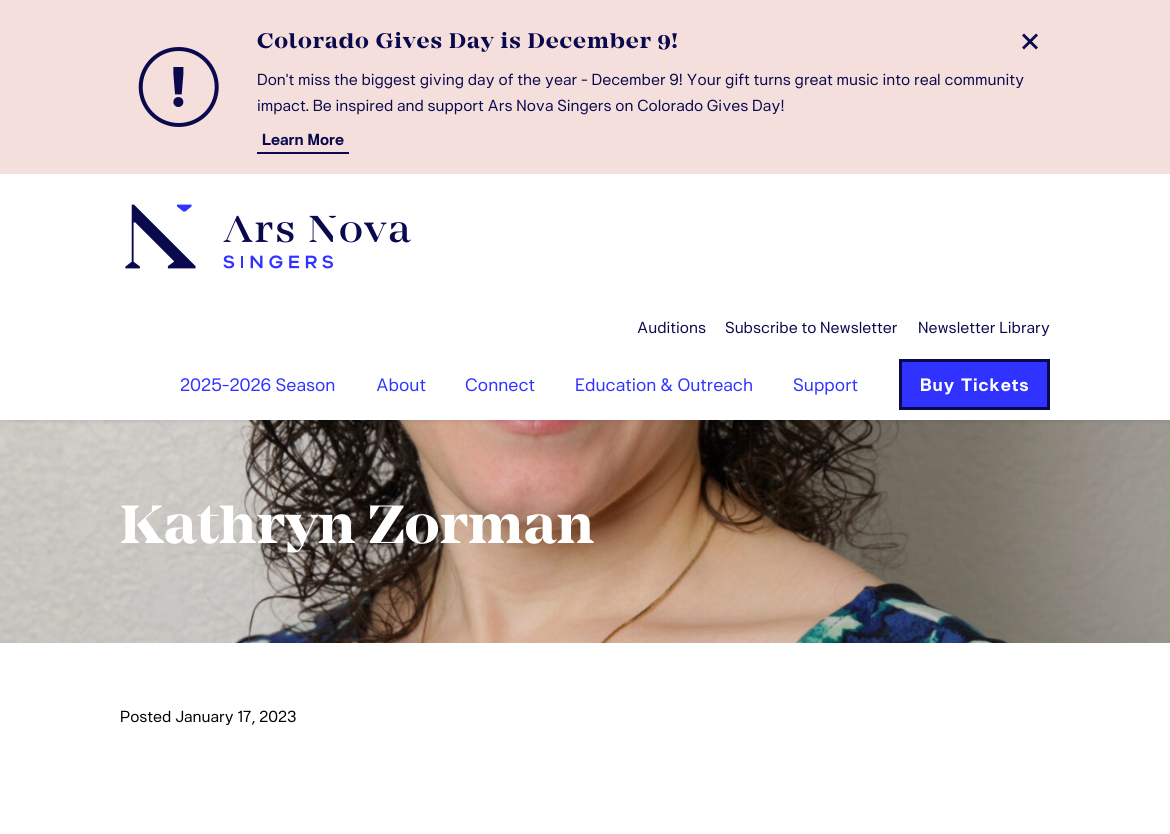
import math
import cairocffi as cairo

surface = cairo.ImageSurface(cairo.FORMAT_RGB24, 1170, 834)
cr = cairo.Context(surface)
options = cairo.FontOptions()
options.set_hint_metrics(cairo.HINT_METRICS_OFF)
options.set_hint_style(cairo.HINT_STYLE_NONE)
cr.set_font_options(options)
cr.set_miter_limit(4)


def use_color(code):
    cr.set_source_rgb(*(v / 255 for v in bytes.fromhex(code[-6:])))


def spaced_text(x, y, s, letter, word):
    cr.move_to(x, y)
    for ch in s:
        cr.show_text(ch)
        cr.rel_move_to(letter + word * (ch == ' '), 0)


def round_rect(x, y, w, h, r):
    cr.new_sub_path()
    for i, (u, v) in enumerate([(x + w - r, y + h - r), (x + r, y + h - r), (x + r, y + r), (x + w - r, y + r)]):
        cr.arc(u, v, r, i * math.pi / 2, (i + 1) * math.pi / 2)
    cr.close_path()


def shadow(x, y, w, h, r, blur, alpha):
    cr.push_group_with_content(cairo.CONTENT_ALPHA)
    cr.set_operator(cairo.OPERATOR_SOURCE)
    for i in range(15, -16, -2):
        e = blur * i / 6
        if min(w, h) + 2 * e > 0:
            cr.set_source_rgba(0, 0, 0, alpha * math.erfc((i - 1) / 8.5) / 2)
            round_rect(x - e, y - e, w + 2 * e, h + 2 * e, max(0, min(r + e + blur * .6, min(w, h) / 2 + e)))
            cr.fill()
    cr.mask(cr.pop_group())


def picture(path, x, y, w, h):
    cr.save()
    cr.set_source_surface(cairo.ImageSurface.create_from_png(path), x, y)
    cr.rectangle(x, y, w, h)
    cr.fill()
    cr.restore()


use_color("#ffffff")
cr.paint()
picture("img3.png", 0, 420, 1170, 223)
use_color("#000000")
shadow(0, 1, 1170, 420, 0, 2.5, 0.1)
use_color("#ffffff")
cr.rectangle(0, 174, 1170, 246)
cr.fill()
use_color("#f4dfdc")
cr.rectangle(0, 0, 1170, 174)
cr.fill()
cr.select_font_face("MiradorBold", cairo.FONT_SLANT_NORMAL, cairo.FONT_WEIGHT_BOLD)
cr.set_font_size(22)
use_color("#0a094e")
spaced_text(257, 48, "Colorado Gives Day is December 9!", 1, 0)
cr.select_font_face("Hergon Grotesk")
cr.set_font_size(16)
cr.move_to(257, 85)
cr.show_text("Don't miss the biggest giving day of the year - December 9! Your gift turns great music into real community")
cr.move_to(257, 111)
cr.show_text("impact. Be inspired and support Ars Nova Singers on Colorado Gives Day!")
cr.rectangle(257, 152, 92, 2)
cr.fill()
cr.select_font_face("Hergon Grotesk", cairo.FONT_SLANT_NORMAL, cairo.FONT_WEIGHT_BOLD)
cr.move_to(262, 145)
cr.show_text("Learn More")
cr.new_path()
cr.move_to(1022, 47.5)
cr.line_to(1036, 33.5)
cr.line_to(1038, 35.5)
cr.line_to(1024, 49.5)
cr.close_path()
cr.fill()
cr.new_path()
cr.move_to(1024, 33.5)
cr.line_to(1038, 47.5)
cr.line_to(1036, 49.5)
cr.line_to(1022, 35.5)
cr.close_path()
cr.fill()
picture("img1.png", 138, 47, 81, 80)
picture("img2.png", 125, 204, 286, 65)
cr.select_font_face("Hergon Grotesk")
cr.move_to(637, 333)
cr.show_text("Auditions")
cr.move_to(725, 333)
cr.show_text("Subscribe to Newsletter")
cr.move_to(918, 333)
cr.show_text("Newsletter Library")
cr.set_font_size(18)
use_color("#3032ff")
cr.move_to(180, 391)
cr.show_text("2025-2026 Season")
cr.move_to(376, 391)
cr.show_text("About")
cr.move_to(465, 391)
cr.show_text("Connect")
cr.move_to(575, 391)
cr.show_text("Education & Outreach")
cr.move_to(793, 391)
cr.show_text("Support")
cr.rectangle(900.5, 360.5, 148, 48)
cr.fill_preserve()
use_color("#0a094e")
cr.set_line_width(3)
cr.stroke()
cr.select_font_face("Hergon Grotesk", cairo.FONT_SLANT_NORMAL, cairo.FONT_WEIGHT_BOLD)
use_color("#ffffff")
spaced_text(920, 391, "Buy Tickets", 0.9, 0)
cr.select_font_face("MiradorBold", cairo.FONT_SLANT_NORMAL, cairo.FONT_WEIGHT_BOLD)
cr.set_font_size(56)
cr.move_to(120, 543)
cr.show_text("Kathryn Zorman")
cr.select_font_face("Hergon Grotesk")
cr.set_font_size(16)
use_color("#000000")
cr.move_to(120, 722)
cr.show_text("Posted January 17, 2023")
surface.write_to_png("result.png")
